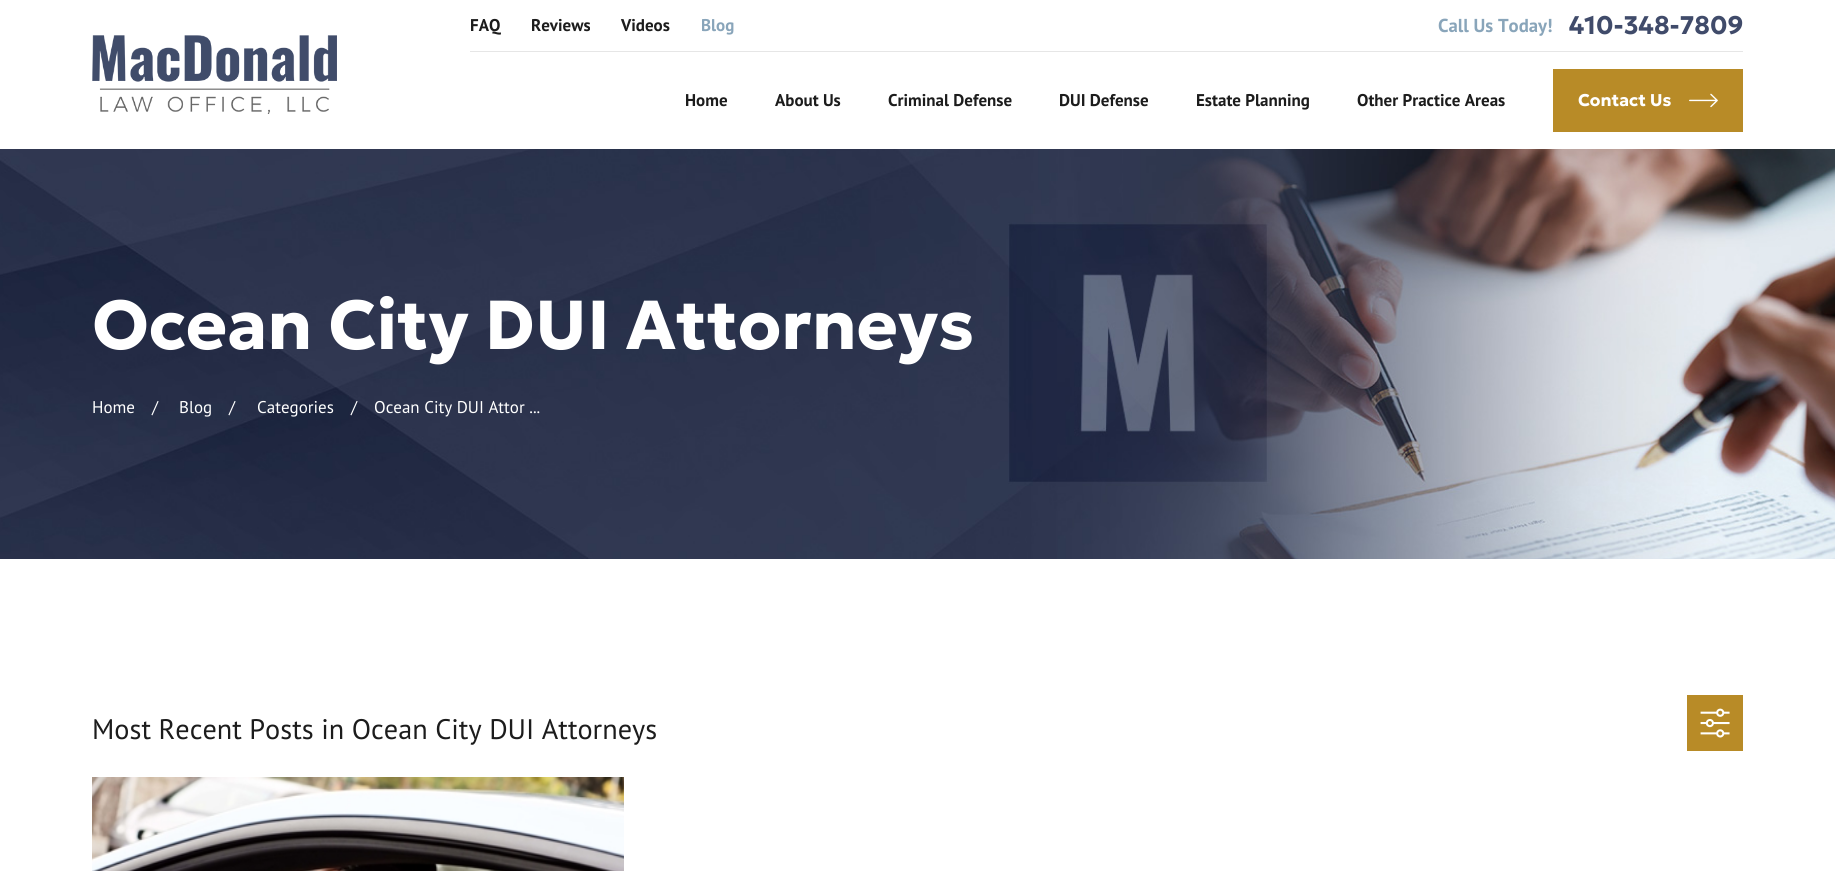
import math
import cairocffi as cairo

surface = cairo.ImageSurface(cairo.FORMAT_RGB24, 1835, 871)
cr = cairo.Context(surface)
options = cairo.FontOptions()
options.set_hint_metrics(cairo.HINT_METRICS_OFF)
options.set_hint_style(cairo.HINT_STYLE_NONE)
cr.set_font_options(options)
cr.set_miter_limit(4)


def use_color(code):
    cr.set_source_rgb(*(v / 255 for v in bytes.fromhex(code[-6:])))


def picture(path, x, y, w, h):
    cr.save()
    cr.set_source_surface(cairo.ImageSurface.create_from_png(path), x, y)
    cr.rectangle(x, y, w, h)
    cr.fill()
    cr.restore()


use_color("#ffffff")
cr.paint()
picture("img1.png", 92, 35, 245, 79)
use_color("#e6e6e6")
cr.rectangle(470, 51, 1273, 1)
cr.fill()
cr.select_font_face("PT Sans", cairo.FONT_SLANT_NORMAL, cairo.FONT_WEIGHT_BOLD)
cr.set_font_size(17)
use_color("#1c1c1c")
cr.move_to(470, 31)
cr.show_text("FAQ")
cr.move_to(531, 31)
cr.show_text("Reviews")
cr.move_to(621, 31)
cr.show_text("Videos")
use_color("#89a5ba")
cr.move_to(701, 31)
cr.show_text("Blog")
cr.set_font_size(18.75)
cr.move_to(1438, 32)
cr.show_text("Call Us Today!")
cr.select_font_face("Geologica", cairo.FONT_SLANT_NORMAL, cairo.FONT_WEIGHT_BOLD)
cr.set_font_size(25.5)
use_color("#404b6a")
cr.move_to(1569, 34)
cr.show_text("410-348-7809")
cr.select_font_face("PT Sans", cairo.FONT_SLANT_NORMAL, cairo.FONT_WEIGHT_BOLD)
cr.set_font_size(17)
use_color("#1c1c1c")
cr.move_to(685, 106)
cr.show_text("Home")
cr.move_to(775, 106)
cr.show_text("About Us")
cr.move_to(888, 106)
cr.show_text("Criminal Defense")
cr.move_to(1059, 106)
cr.show_text("DUI Defense")
cr.move_to(1196, 106)
cr.show_text("Estate Planning")
cr.move_to(1357, 106)
cr.show_text("Other Practice Areas")
use_color("#b88b27")
cr.rectangle(1553, 69, 190, 63)
cr.fill()
cr.select_font_face("Geologica", cairo.FONT_SLANT_NORMAL, cairo.FONT_WEIGHT_BOLD)
use_color("#ffffff")
cr.move_to(1578, 106)
cr.show_text("Contact Us")
picture("img2.png", 1689, 93, 29, 15)
picture("img3.png", 0, 149, 1835, 410)
cr.set_font_size(69.1)
cr.move_to(92, 349)
cr.show_text("Ocean City DUI Attorneys")
cr.select_font_face("PT Sans")
cr.set_font_size(17)
cr.move_to(92, 413)
cr.show_text("Home")
cr.move_to(152, 413)
cr.show_text("/")
cr.move_to(179, 413)
cr.show_text("Blog")
cr.move_to(229, 413)
cr.show_text("/")
cr.move_to(257, 413)
cr.show_text("Categories")
cr.move_to(351, 413)
cr.show_text("/")
cr.move_to(374, 413)
cr.show_text("Ocean City DUI Attor ...")
cr.set_font_size(28.25)
use_color("#1c1c1c")
cr.move_to(92, 739)
cr.show_text("Most Recent Posts in Ocean City DUI Attorneys")
use_color("#b88b27")
cr.rectangle(1687, 695, 56, 56)
cr.fill()
picture("img4.png", 1700, 708, 30, 30)
picture("img5.png", 92, 777, 532, 94)
surface.write_to_png("result.png")
